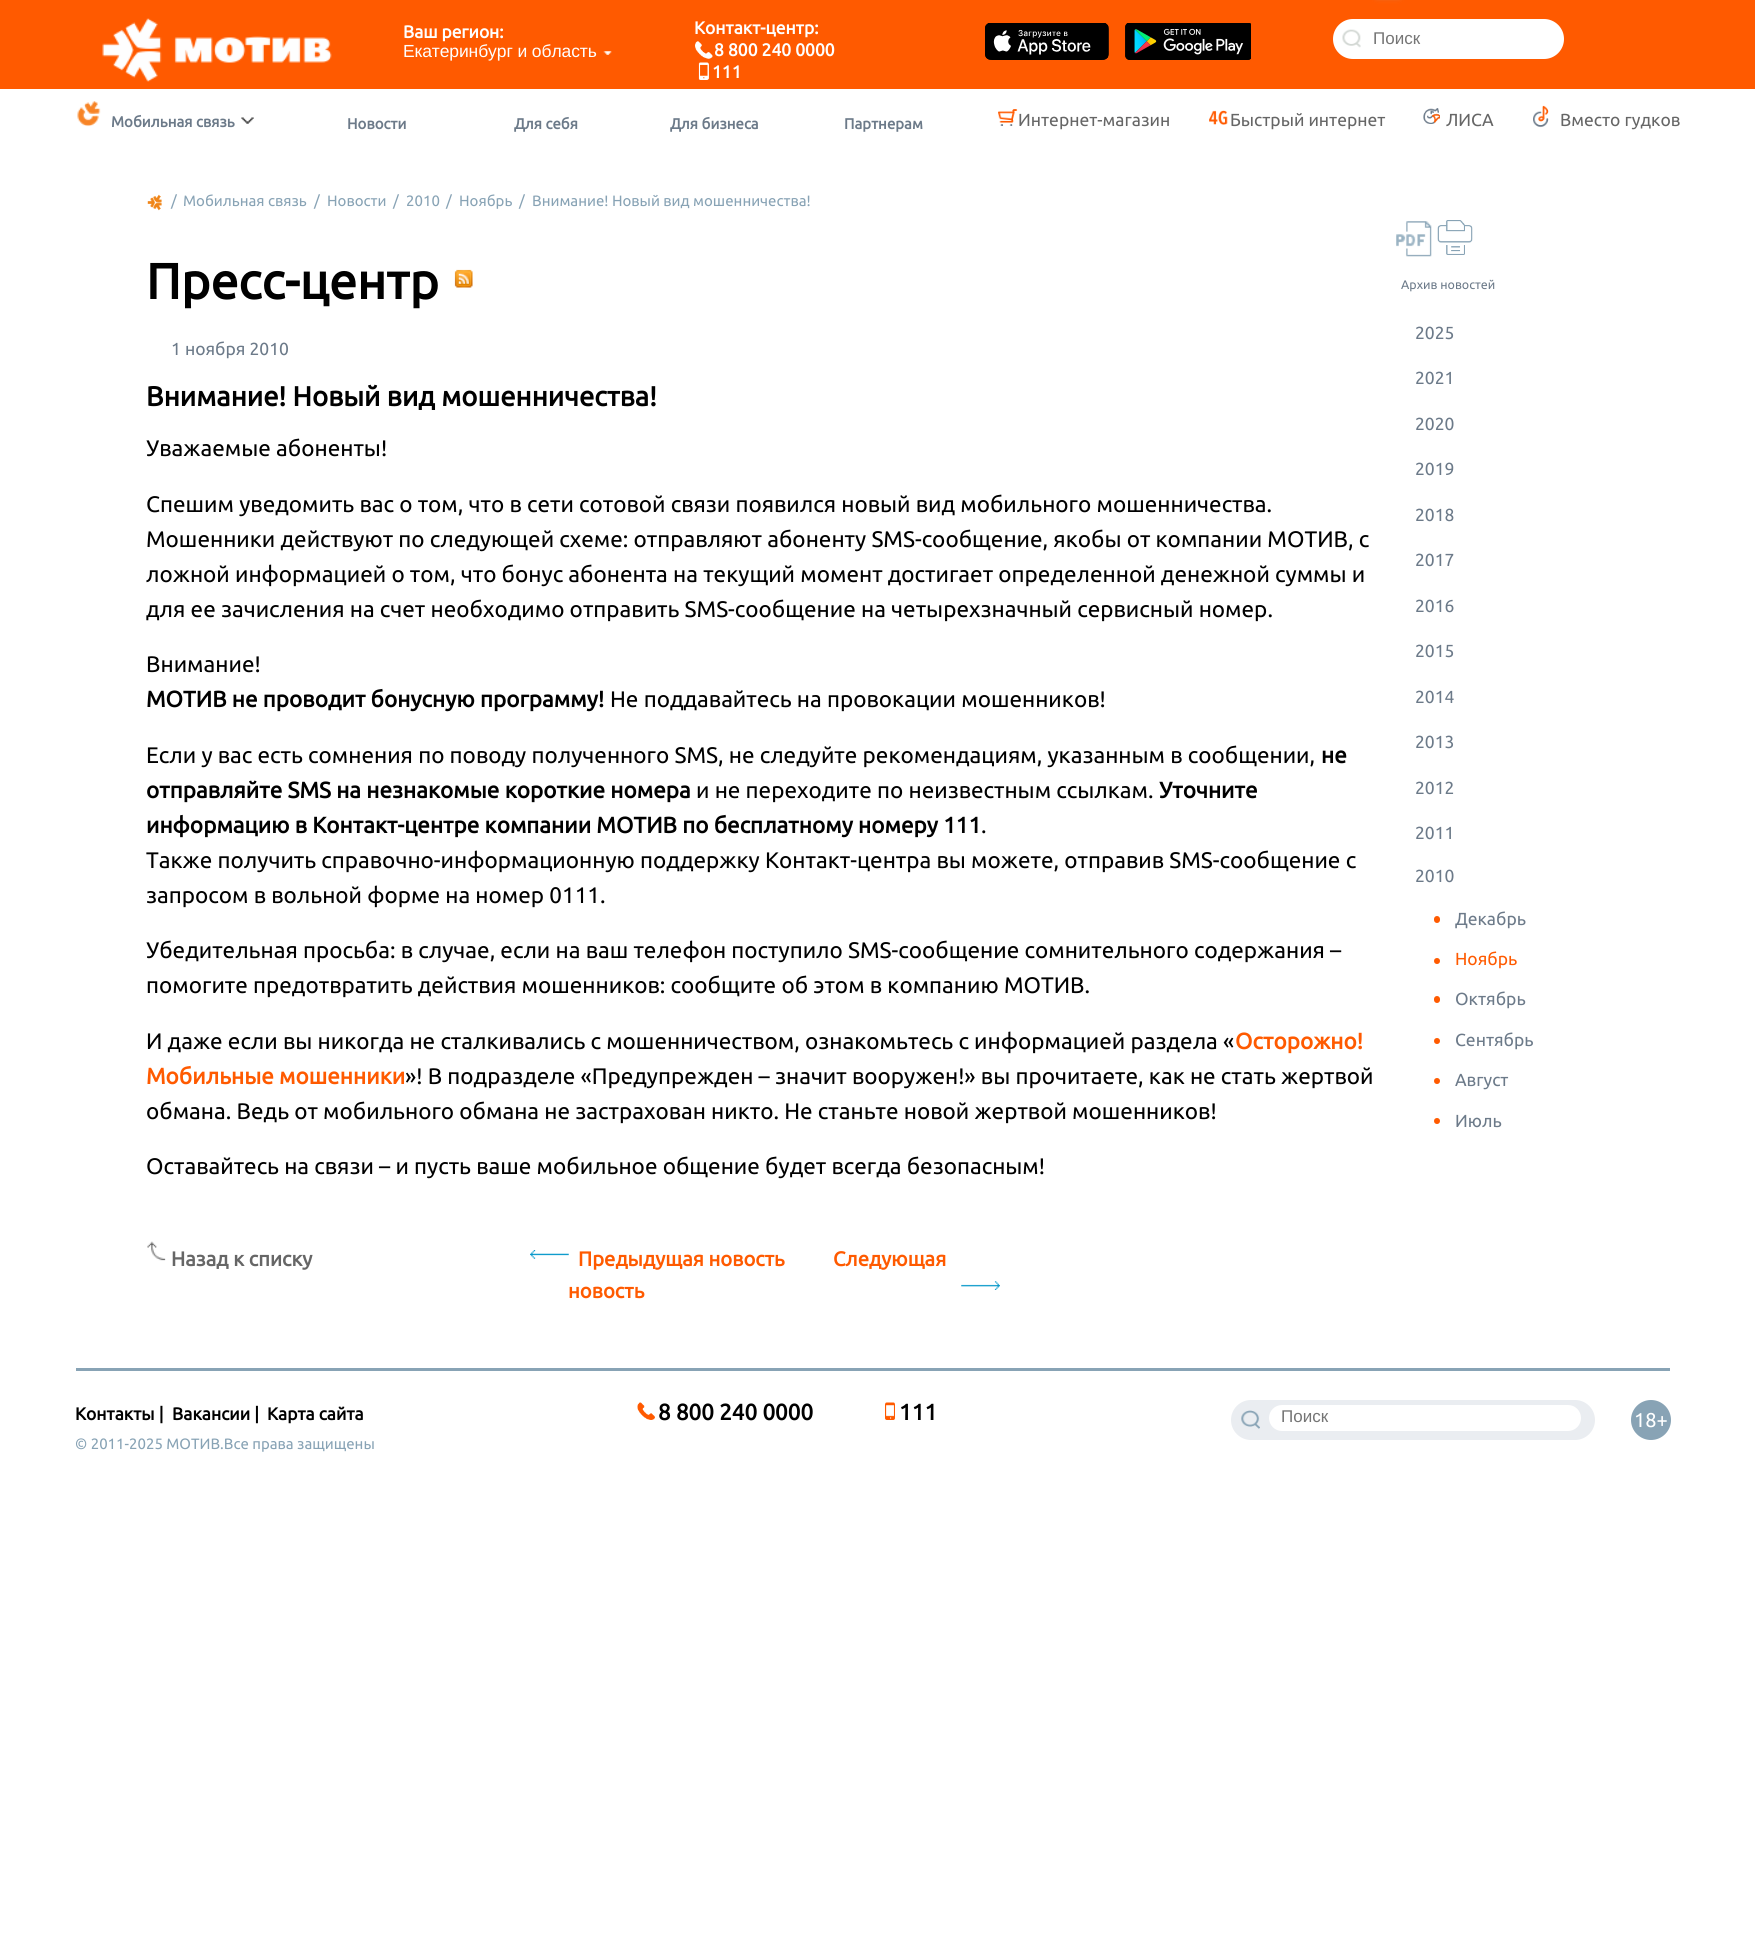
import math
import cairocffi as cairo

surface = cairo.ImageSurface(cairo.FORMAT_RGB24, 1755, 1944)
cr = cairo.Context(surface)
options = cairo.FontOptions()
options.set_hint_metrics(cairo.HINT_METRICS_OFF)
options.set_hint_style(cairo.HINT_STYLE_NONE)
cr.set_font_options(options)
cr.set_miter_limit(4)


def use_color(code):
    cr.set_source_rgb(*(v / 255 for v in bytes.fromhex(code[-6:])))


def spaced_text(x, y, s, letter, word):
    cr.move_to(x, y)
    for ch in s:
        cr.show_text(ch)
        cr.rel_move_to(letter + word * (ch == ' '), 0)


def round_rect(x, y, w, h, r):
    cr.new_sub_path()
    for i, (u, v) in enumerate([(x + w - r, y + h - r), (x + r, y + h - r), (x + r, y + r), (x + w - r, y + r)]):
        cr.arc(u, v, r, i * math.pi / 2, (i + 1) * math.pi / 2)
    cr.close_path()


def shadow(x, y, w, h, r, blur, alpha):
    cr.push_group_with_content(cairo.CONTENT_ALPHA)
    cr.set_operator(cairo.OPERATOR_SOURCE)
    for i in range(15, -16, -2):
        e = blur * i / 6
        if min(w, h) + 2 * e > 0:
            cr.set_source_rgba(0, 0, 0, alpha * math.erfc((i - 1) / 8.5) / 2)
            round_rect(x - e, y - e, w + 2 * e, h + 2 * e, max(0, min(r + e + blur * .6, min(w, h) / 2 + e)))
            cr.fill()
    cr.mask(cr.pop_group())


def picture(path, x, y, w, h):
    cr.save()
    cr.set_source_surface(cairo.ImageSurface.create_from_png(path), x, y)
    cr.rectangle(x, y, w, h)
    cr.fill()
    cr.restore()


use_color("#ffffff")
cr.paint()
use_color("#ff5a00")
cr.rectangle(0, 0, 1755, 89)
cr.fill()
use_color("#aaaaaa")
shadow(1373, -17, 30, 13, 8, 3, 1)
picture("img1.png", 102, 18, 230, 64)
cr.select_font_face("Ubuntu", cairo.FONT_SLANT_NORMAL, cairo.FONT_WEIGHT_BOLD)
cr.set_font_size(17.5)
use_color("#ffffff")
spaced_text(403, 38, "Ваш регион:", -0.1, 0)
cr.select_font_face("Liberation Sans")
spaced_text(403, 57, "Екатеринбург и область", -0.1, 0)
picture("img2.png", 603, 51, 9, 4)
cr.select_font_face("Ubuntu", cairo.FONT_SLANT_NORMAL, cairo.FONT_WEIGHT_BOLD)
cr.move_to(694, 34)
cr.show_text("Контакт-центр:")
picture("img3.png", 695, 41, 18, 18)
cr.move_to(714, 56)
cr.show_text("8 800 240 0000")
picture("img4.png", 698, 62, 11, 18)
cr.move_to(712, 78)
cr.show_text("111")
picture("img5.png", 985, 23, 124, 37)
picture("img6.png", 1125, 23, 126, 37)
round_rect(1333, 19, 231, 40, 20)
cr.fill()
picture("img7.png", 1342, 29, 19, 19)
cr.select_font_face("Liberation Sans")
cr.set_font_size(17)
use_color("#757575")
cr.move_to(1373, 44)
cr.show_text("Поиск")
picture("img8.png", 77, 101, 24, 26)
cr.select_font_face("Ubuntu", cairo.FONT_SLANT_NORMAL, cairo.FONT_WEIGHT_BOLD)
cr.set_font_size(15)
use_color("#6c7a89")
cr.move_to(111, 127)
cr.show_text("Мобильная связь")
picture("img9.png", 241, 117, 13, 7)
cr.move_to(347, 129)
cr.show_text("Новости")
cr.move_to(514, 129)
cr.show_text("Для себя")
cr.move_to(670, 129)
cr.show_text("Для бизнеса")
cr.move_to(844, 129)
cr.show_text("Партнерам")
picture("img10.png", 998, 109, 20, 17)
cr.select_font_face("Ubuntu")
cr.set_font_size(17.5)
use_color("#666666")
cr.move_to(1018, 126)
cr.show_text("Интернет-магазин")
picture("img11.png", 1209, 110, 19, 15)
cr.move_to(1230, 126)
cr.show_text("Быстрый интернет")
picture("img12.png", 1423, 108, 17, 16)
cr.move_to(1446, 126)
cr.show_text("ЛИСА")
picture("img13.png", 1533, 105, 16, 23)
cr.move_to(1560, 126)
cr.show_text("Вместо гудков")
picture("img14.png", 147, 194, 15, 17)
cr.set_font_size(15)
use_color("#88a3b5")
cr.move_to(171, 206)
cr.show_text("/")
cr.move_to(183, 206)
cr.show_text("Мобильная связь")
cr.move_to(314, 206)
cr.show_text("/")
cr.move_to(327, 206)
cr.show_text("Новости")
cr.move_to(393, 206)
cr.show_text("/")
cr.move_to(406, 206)
cr.show_text("2010")
cr.move_to(446, 206)
cr.show_text("/")
cr.move_to(459, 206)
cr.show_text("Ноябрь")
cr.move_to(519, 206)
cr.show_text("/")
cr.move_to(532, 206)
cr.show_text("Внимание! Новый вид мошенничества!")
cr.select_font_face("Ubuntu", cairo.FONT_SLANT_NORMAL, cairo.FONT_WEIGHT_BOLD)
cr.set_font_size(50)
use_color("#000000")
cr.move_to(146, 299)
cr.show_text("Пресс-центр")
picture("img15.png", 454, 269, 19, 19)
cr.select_font_face("Ubuntu")
cr.set_font_size(17.5)
use_color("#6c7a89")
cr.move_to(171, 355)
cr.show_text("1 ноября 2010")
cr.select_font_face("Ubuntu", cairo.FONT_SLANT_NORMAL, cairo.FONT_WEIGHT_BOLD)
cr.set_font_size(27.5)
use_color("#000000")
cr.move_to(146, 406)
cr.show_text("Внимание! Новый вид мошенничества!")
cr.select_font_face("Ubuntu")
cr.set_font_size(22.5)
cr.move_to(146, 456)
cr.show_text("Уважаемые абоненты!")
cr.move_to(146, 512)
cr.show_text("Спешим уведомить вас о том, что в сети сотовой связи появился новый вид мобильного мошенничества.")
cr.move_to(146, 547)
cr.show_text("Мошенники действуют по следующей схеме: отправляют абоненту SMS-сообщение, якобы от компании МОТИВ, с")
cr.move_to(146, 582)
cr.show_text("ложной информацией о том, что бонус абонента на текущий момент достигает определенной денежной суммы и")
cr.move_to(146, 617)
cr.show_text("для ее зачисления на счет необходимо отправить SMS-сообщение на четырехзначный сервисный номер.")
cr.move_to(146, 672)
cr.show_text("Внимание!")
cr.select_font_face("Ubuntu", cairo.FONT_SLANT_NORMAL, cairo.FONT_WEIGHT_BOLD)
cr.move_to(146, 707)
cr.show_text("МОТИВ не проводит бонусную программу!")
cr.select_font_face("Ubuntu")
cr.move_to(610, 707)
cr.show_text("Не поддавайтесь на провокации мошенников!")
cr.move_to(146, 763)
cr.show_text("Если у вас есть сомнения по поводу полученного SMS, не следуйте рекомендациям, указанным в сообщении,")
cr.select_font_face("Ubuntu", cairo.FONT_SLANT_NORMAL, cairo.FONT_WEIGHT_BOLD)
cr.move_to(1321, 763)
cr.show_text("не")
cr.move_to(146, 798)
cr.show_text("отправляйте SMS на незнакомые короткие номера")
cr.select_font_face("Ubuntu")
cr.move_to(696, 798)
cr.show_text("и не переходите по неизвестным ссылкам.")
cr.select_font_face("Ubuntu", cairo.FONT_SLANT_NORMAL, cairo.FONT_WEIGHT_BOLD)
cr.move_to(1159, 798)
cr.show_text("Уточните")
cr.move_to(146, 833)
cr.show_text("информацию в Контакт-центре компании МОТИВ по бесплатному номеру 111")
cr.select_font_face("Ubuntu")
cr.move_to(981, 833)
cr.show_text(".")
cr.move_to(146, 868)
cr.show_text("Также получить справочно-информационную поддержку Контакт-центра вы можете, отправив SMS-сообщение с")
cr.move_to(146, 903)
cr.show_text("запросом в вольной форме на номер 0111.")
cr.move_to(146, 958)
cr.show_text("Убедительная просьба: в случае, если на ваш телефон поступило SMS-сообщение сомнительного содержания –")
cr.move_to(146, 993)
cr.show_text("помогите предотвратить действия мошенников: сообщите об этом в компанию МОТИВ.")
cr.move_to(146, 1049)
cr.show_text("И даже если вы никогда не сталкивались с мошенничеством, ознакомьтесь с информацией раздела «")
cr.select_font_face("Ubuntu", cairo.FONT_SLANT_NORMAL, cairo.FONT_WEIGHT_BOLD)
use_color("#ff5a00")
cr.move_to(1235, 1049)
cr.show_text("Осторожно!")
cr.move_to(146, 1084)
cr.show_text("Мобильные мошенники")
cr.select_font_face("Ubuntu")
use_color("#000000")
cr.move_to(405, 1084)
cr.show_text("»! В подразделе «Предупрежден – значит вооружен!» вы прочитаете, как не стать жертвой")
cr.move_to(146, 1119)
cr.show_text("обмана. Ведь от мобильного обмана не застрахован никто. Не станьте новой жертвой мошенников!")
cr.move_to(146, 1174)
cr.show_text("Оставайтесь на связи – и пусть ваше мобильное общение будет всегда безопасным!")
picture("img16.png", 147, 1241, 19, 20)
cr.select_font_face("Ubuntu", cairo.FONT_SLANT_NORMAL, cairo.FONT_WEIGHT_BOLD)
cr.set_font_size(20.25)
use_color("#666666")
cr.move_to(171, 1266)
cr.show_text("Назад к списку")
use_color("#ff5a00")
cr.move_to(833, 1266)
cr.show_text("Следующая")
picture("img17.png", 961, 1281, 39, 9)
cr.move_to(568, 1298)
cr.show_text("новость")
picture("img18.png", 530, 1250, 39, 9)
cr.move_to(578, 1266)
cr.show_text("Предыдущая новость")
picture("img19.png", 1396, 221, 36, 36)
picture("img20.png", 1437, 220, 36, 35)
cr.select_font_face("Ubuntu")
cr.set_font_size(12.5)
use_color("#6c7a89")
cr.move_to(1401, 289)
cr.show_text("Архив новостей")
cr.set_font_size(17.5)
cr.move_to(1415, 339)
cr.show_text("2025")
cr.move_to(1415, 384)
cr.show_text("2021")
cr.move_to(1415, 430)
cr.show_text("2020")
cr.move_to(1415, 475)
cr.show_text("2019")
cr.move_to(1415, 521)
cr.show_text("2018")
cr.move_to(1415, 566)
cr.show_text("2017")
cr.move_to(1415, 612)
cr.show_text("2016")
cr.move_to(1415, 657)
cr.show_text("2015")
cr.move_to(1415, 703)
cr.show_text("2014")
cr.move_to(1415, 748)
cr.show_text("2013")
cr.move_to(1415, 794)
cr.show_text("2012")
cr.move_to(1415, 839)
cr.show_text("2011")
cr.move_to(1415, 882)
cr.show_text("2010")
use_color("#ff5a00")
round_rect(1434, 916, 6, 7, 3)
cr.fill()
use_color("#6c7a89")
cr.move_to(1455, 925)
cr.show_text("Декабрь")
use_color("#ff5a00")
cr.new_path()
cr.arc(1437, 961, 3, 0, 2 * math.pi)
cr.fill()
cr.move_to(1455, 965)
cr.show_text("Ноябрь")
round_rect(1434, 996, 6, 7, 3)
cr.fill()
use_color("#6c7a89")
cr.move_to(1455, 1005)
cr.show_text("Октябрь")
use_color("#ff5a00")
cr.new_path()
cr.arc(1437, 1041, 3, 0, 2 * math.pi)
cr.fill()
use_color("#6c7a89")
cr.move_to(1455, 1046)
cr.show_text("Сентябрь")
use_color("#ff5a00")
cr.new_path()
cr.arc(1437, 1081, 3, 0, 2 * math.pi)
cr.fill()
use_color("#6c7a89")
cr.move_to(1455, 1086)
cr.show_text("Август")
use_color("#ff5a00")
cr.new_path()
cr.arc(1437, 1121, 3, 0, 2 * math.pi)
cr.fill()
use_color("#6c7a89")
cr.move_to(1455, 1127)
cr.show_text("Июль")
use_color("#88a3b5")
cr.rectangle(76, 1368, 1594, 3)
cr.fill()
cr.select_font_face("Ubuntu", cairo.FONT_SLANT_NORMAL, cairo.FONT_WEIGHT_BOLD)
use_color("#000000")
cr.move_to(75, 1420)
cr.show_text("Контакты |")
cr.move_to(172, 1420)
cr.show_text("Вакансии |")
cr.move_to(267, 1420)
cr.show_text("Карта сайта")
picture("img21.png", 637, 1402, 18, 18)
cr.set_font_size(22.5)
cr.move_to(658, 1420)
cr.show_text("8 800 240 0000")
picture("img22.png", 885, 1402, 10, 18)
cr.move_to(899, 1420)
cr.show_text("111")
use_color("#eaedf1")
round_rect(1231, 1400, 364, 40, 20)
cr.fill()
picture("img23.png", 1241, 1410, 19, 19)
use_color("#ffffff")
round_rect(1269, 1405, 312, 26, 13)
cr.fill()
cr.select_font_face("Liberation Sans")
cr.set_font_size(17)
use_color("#757575")
cr.move_to(1281, 1422)
cr.show_text("Поиск")
use_color("#88a3b5")
cr.new_path()
cr.arc(1651, 1420, 20, 0, 2 * math.pi)
cr.fill()
cr.select_font_face("Ubuntu")
cr.set_font_size(20)
use_color("#ffffff")
cr.move_to(1634, 1427)
cr.show_text("18+")
cr.set_font_size(15)
use_color("#88a3b5")
cr.move_to(75, 1449)
cr.show_text("© 2011-2025 МОТИВ.Все права защищены")
surface.write_to_png("result.png")
